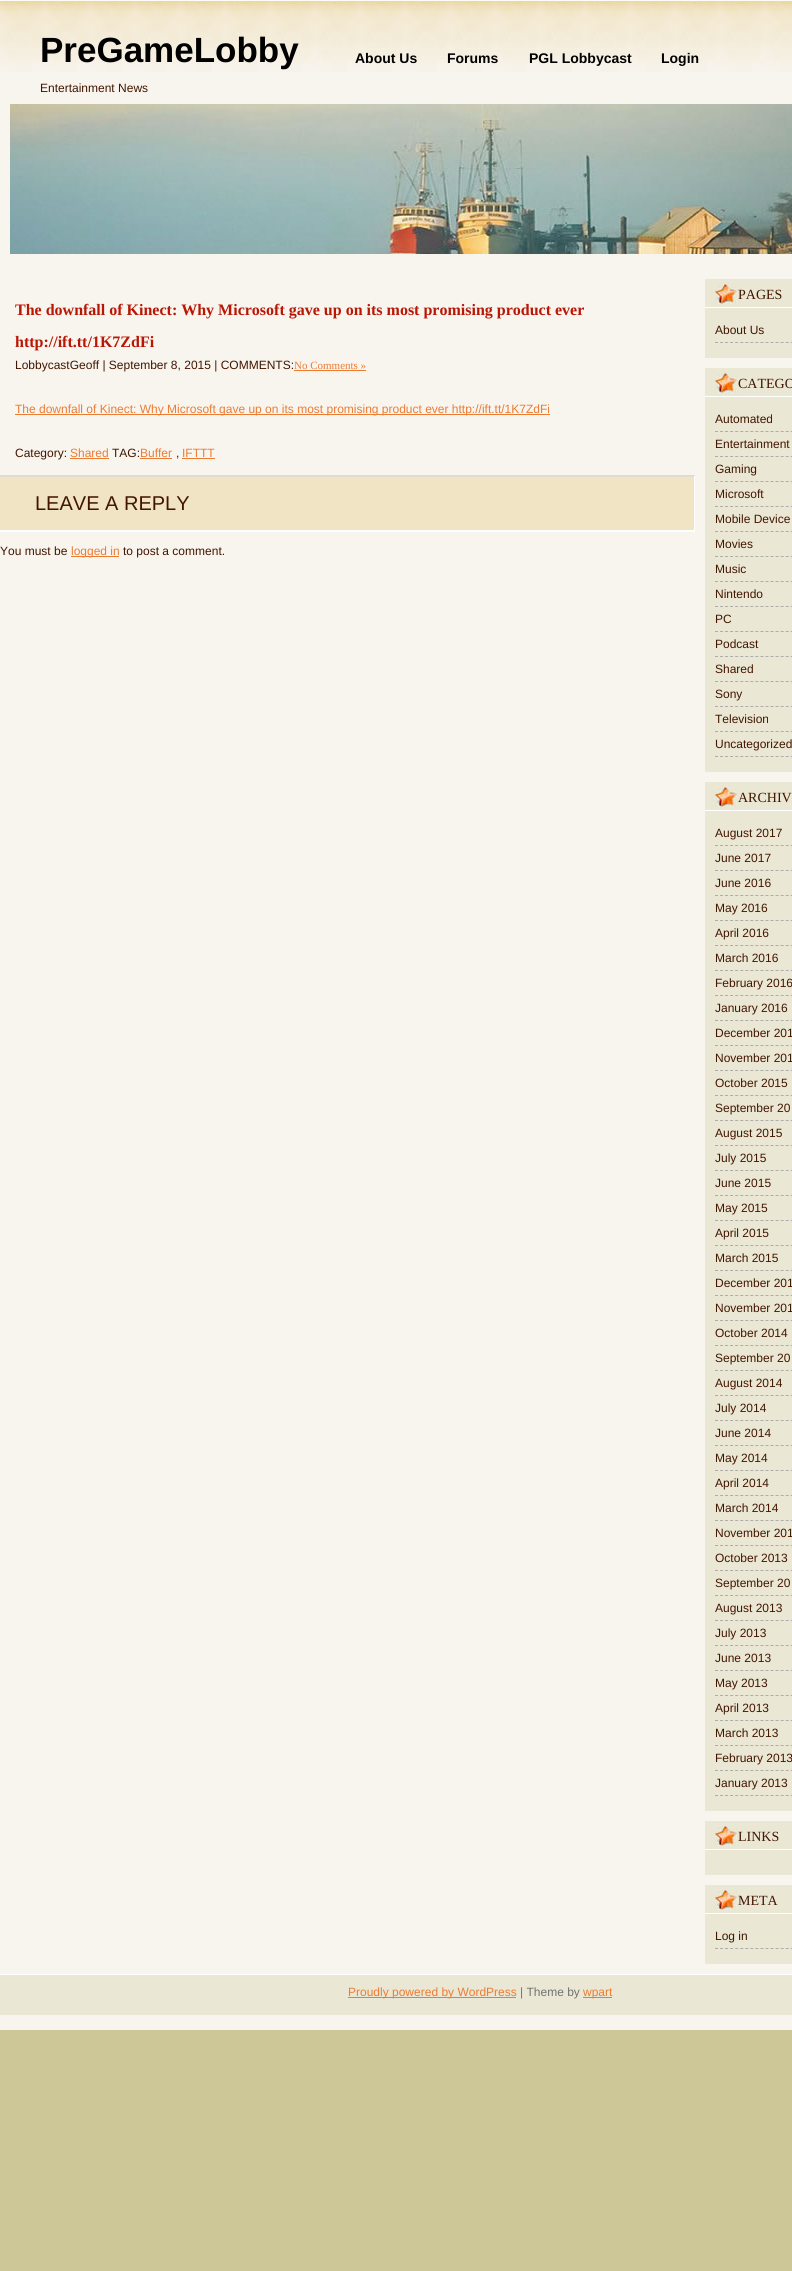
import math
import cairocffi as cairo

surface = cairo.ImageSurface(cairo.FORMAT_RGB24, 792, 2271)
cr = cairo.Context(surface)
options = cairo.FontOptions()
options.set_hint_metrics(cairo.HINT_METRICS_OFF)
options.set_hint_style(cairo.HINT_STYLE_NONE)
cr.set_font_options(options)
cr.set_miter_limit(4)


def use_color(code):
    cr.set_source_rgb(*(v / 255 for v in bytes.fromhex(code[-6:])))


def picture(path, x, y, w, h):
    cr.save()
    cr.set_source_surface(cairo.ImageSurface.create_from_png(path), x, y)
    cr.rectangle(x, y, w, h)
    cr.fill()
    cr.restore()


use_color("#cdc798")
cr.paint()
use_color("#f8f4ee")
cr.rectangle(0, 72, 792, 22)
cr.fill()
picture("img1.png", 0, 0, 792, 72)
cr.select_font_face("Liberation Sans", cairo.FONT_SLANT_NORMAL, cairo.FONT_WEIGHT_BOLD)
cr.set_font_size(35)
use_color("#000000")
cr.move_to(40, 62)
cr.show_text("PreGameLobby")
cr.select_font_face("Liberation Sans")
cr.set_font_size(12)
use_color("#421600")
cr.move_to(40, 92)
cr.show_text("Entertainment News")
cr.select_font_face("Liberation Sans", cairo.FONT_SLANT_NORMAL, cairo.FONT_WEIGHT_BOLD)
cr.set_font_size(14)
use_color("#000000")
cr.move_to(355, 63)
cr.show_text("About Us")
cr.move_to(447, 63)
cr.show_text("Forums")
cr.move_to(529, 63)
cr.show_text("PGL Lobbycast")
cr.move_to(661, 63)
cr.show_text("Login")
use_color("#f8f4ee")
cr.rectangle(0, 94, 792, 1936)
cr.fill()
picture("img2.png", 10, 104, 782, 150)
use_color("#dfdcd0")
cr.rectangle(0, 475, 695, 2)
cr.fill()
cr.select_font_face("Liberation Serif", cairo.FONT_SLANT_NORMAL, cairo.FONT_WEIGHT_BOLD)
cr.set_font_size(16)
use_color("#b81705")
cr.move_to(15, 315)
cr.show_text("The downfall of Kinect: Why Microsoft gave up on its most promising product ever")
cr.move_to(15, 347)
cr.show_text("http://ift.tt/1K7ZdFi")
cr.select_font_face("Liberation Sans")
cr.set_font_size(12)
use_color("#421600")
cr.move_to(15, 369)
cr.show_text("LobbycastGeoff | September 8, 2015 | COMMENTS:")
cr.select_font_face("Liberation Serif")
cr.set_font_size(11)
use_color("#ec7c34")
cr.move_to(294, 369)
cr.show_text("No Comments »")
cr.rectangle(294, 370, 72, 1)
cr.fill()
cr.rectangle(15, 414, 535, 1)
cr.fill()
cr.select_font_face("Liberation Sans")
cr.set_font_size(12)
cr.move_to(15, 413)
cr.show_text("The downfall of Kinect: Why Microsoft gave up on its most promising product ever http://ift.tt/1K7ZdFi")
use_color("#421600")
cr.move_to(15, 457)
cr.show_text("Category:")
use_color("#ec7c34")
cr.move_to(70, 457)
cr.show_text("Shared")
cr.rectangle(70, 458, 39, 1)
cr.fill()
use_color("#421600")
cr.move_to(112, 457)
cr.show_text("TAG:")
use_color("#ec7c34")
cr.move_to(140, 457)
cr.show_text("Buffer")
cr.rectangle(140, 458, 32, 1)
cr.fill()
use_color("#421600")
cr.move_to(176, 457)
cr.show_text(",")
use_color("#ec7c34")
cr.move_to(182, 457)
cr.show_text("IFTTT")
cr.rectangle(182, 458, 33, 1)
cr.fill()
use_color("#f1e4c4")
cr.rectangle(0, 477, 694, 53)
cr.fill()
use_color("#ffffff")
cr.rectangle(694, 476, 1, 56)
cr.fill()
cr.rectangle(0, 530, 695, 2)
cr.fill()
cr.set_font_size(20)
use_color("#421600")
cr.move_to(35, 510)
cr.show_text("LEAVE A REPLY")
cr.set_font_size(12)
cr.move_to(0, 555)
cr.show_text("You must be")
use_color("#ec7c34")
cr.rectangle(71, 556, 48, 1)
cr.fill()
cr.move_to(71, 555)
cr.show_text("logged in")
use_color("#421600")
cr.move_to(123, 555)
cr.show_text("to post a comment.")
use_color("#eae7d4")
cr.rectangle(705, 279, 87, 79)
cr.fill()
picture("img3.png", 715, 284, 22, 20)
use_color("#ffffff")
cr.rectangle(705, 307, 87, 1)
cr.fill()
cr.select_font_face("Liberation Serif")
cr.set_font_size(14)
use_color("#421600")
cr.move_to(738, 299)
cr.show_text("PAGES")
cr.new_path()
cr.move_to(715, 342.5)
cr.line_to(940, 342.5)
use_color("#aeada9")
cr.set_line_width(1)
cr.set_dash([3, 2.05])
cr.stroke()
cr.select_font_face("Liberation Sans")
cr.set_font_size(12)
use_color("#421600")
cr.move_to(715, 334)
cr.show_text("About Us")
use_color("#eae7d4")
cr.rectangle(705, 368, 87, 404)
cr.fill()
picture("img3.png", 715, 373, 22, 20)
use_color("#ffffff")
cr.rectangle(705, 396, 87, 1)
cr.fill()
cr.select_font_face("Liberation Serif")
cr.set_font_size(14)
use_color("#421600")
cr.move_to(738, 388)
cr.show_text("CATEGO")
cr.new_path()
cr.move_to(715, 431.5)
cr.line_to(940, 431.5)
use_color("#aeada9")
cr.stroke()
cr.select_font_face("Liberation Sans")
cr.set_font_size(12)
use_color("#421600")
cr.move_to(715, 423)
cr.show_text("Automated")
cr.new_path()
cr.move_to(715, 456.5)
cr.line_to(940, 456.5)
use_color("#aeada9")
cr.stroke()
use_color("#421600")
cr.move_to(715, 448)
cr.show_text("Entertainment")
cr.new_path()
cr.move_to(715, 481.5)
cr.line_to(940, 481.5)
use_color("#aeada9")
cr.stroke()
use_color("#421600")
cr.move_to(715, 473)
cr.show_text("Gaming")
cr.new_path()
cr.move_to(715, 506.5)
cr.line_to(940, 506.5)
use_color("#aeada9")
cr.stroke()
use_color("#421600")
cr.move_to(715, 498)
cr.show_text("Microsoft")
cr.new_path()
cr.move_to(715, 531.5)
cr.line_to(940, 531.5)
use_color("#aeada9")
cr.stroke()
use_color("#421600")
cr.move_to(715, 523)
cr.show_text("Mobile Device")
cr.new_path()
cr.move_to(715, 556.5)
cr.line_to(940, 556.5)
use_color("#aeada9")
cr.stroke()
use_color("#421600")
cr.move_to(715, 548)
cr.show_text("Movies")
cr.new_path()
cr.move_to(715, 581.5)
cr.line_to(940, 581.5)
use_color("#aeada9")
cr.stroke()
use_color("#421600")
cr.move_to(715, 573)
cr.show_text("Music")
cr.new_path()
cr.move_to(715, 606.5)
cr.line_to(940, 606.5)
use_color("#aeada9")
cr.stroke()
use_color("#421600")
cr.move_to(715, 598)
cr.show_text("Nintendo")
cr.new_path()
cr.move_to(715, 631.5)
cr.line_to(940, 631.5)
use_color("#aeada9")
cr.stroke()
use_color("#421600")
cr.move_to(715, 623)
cr.show_text("PC")
cr.new_path()
cr.move_to(715, 656.5)
cr.line_to(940, 656.5)
use_color("#aeada9")
cr.stroke()
use_color("#421600")
cr.move_to(715, 648)
cr.show_text("Podcast")
cr.new_path()
cr.move_to(715, 681.5)
cr.line_to(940, 681.5)
use_color("#aeada9")
cr.stroke()
use_color("#421600")
cr.move_to(715, 673)
cr.show_text("Shared")
cr.new_path()
cr.move_to(715, 706.5)
cr.line_to(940, 706.5)
use_color("#aeada9")
cr.stroke()
use_color("#421600")
cr.move_to(715, 698)
cr.show_text("Sony")
cr.new_path()
cr.move_to(715, 731.5)
cr.line_to(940, 731.5)
use_color("#aeada9")
cr.stroke()
use_color("#421600")
cr.move_to(715, 723)
cr.show_text("Television")
cr.new_path()
cr.move_to(715, 756.5)
cr.line_to(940, 756.5)
use_color("#aeada9")
cr.stroke()
use_color("#421600")
cr.move_to(715, 748)
cr.show_text("Uncategorized")
use_color("#eae7d4")
cr.rectangle(705, 782, 87, 1029)
cr.fill()
picture("img3.png", 715, 787, 22, 20)
use_color("#ffffff")
cr.rectangle(705, 810, 87, 1)
cr.fill()
cr.select_font_face("Liberation Serif")
cr.set_font_size(14)
use_color("#421600")
cr.move_to(738, 802)
cr.show_text("ARCHIV")
cr.new_path()
cr.move_to(715, 845.5)
cr.line_to(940, 845.5)
use_color("#aeada9")
cr.stroke()
cr.select_font_face("Liberation Sans")
cr.set_font_size(12)
use_color("#421600")
cr.move_to(715, 837)
cr.show_text("August 2017")
cr.new_path()
cr.move_to(715, 870.5)
cr.line_to(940, 870.5)
use_color("#aeada9")
cr.stroke()
use_color("#421600")
cr.move_to(715, 862)
cr.show_text("June 2017")
cr.new_path()
cr.move_to(715, 895.5)
cr.line_to(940, 895.5)
use_color("#aeada9")
cr.stroke()
use_color("#421600")
cr.move_to(715, 887)
cr.show_text("June 2016")
cr.new_path()
cr.move_to(715, 920.5)
cr.line_to(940, 920.5)
use_color("#aeada9")
cr.stroke()
use_color("#421600")
cr.move_to(715, 912)
cr.show_text("May 2016")
cr.new_path()
cr.move_to(715, 945.5)
cr.line_to(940, 945.5)
use_color("#aeada9")
cr.stroke()
use_color("#421600")
cr.move_to(715, 937)
cr.show_text("April 2016")
cr.new_path()
cr.move_to(715, 970.5)
cr.line_to(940, 970.5)
use_color("#aeada9")
cr.stroke()
use_color("#421600")
cr.move_to(715, 962)
cr.show_text("March 2016")
cr.new_path()
cr.move_to(715, 995.5)
cr.line_to(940, 995.5)
use_color("#aeada9")
cr.stroke()
use_color("#421600")
cr.move_to(715, 987)
cr.show_text("February 2016")
cr.new_path()
cr.move_to(715, 1020.5)
cr.line_to(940, 1020.5)
use_color("#aeada9")
cr.stroke()
use_color("#421600")
cr.move_to(715, 1012)
cr.show_text("January 2016")
cr.new_path()
cr.move_to(715, 1045.5)
cr.line_to(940, 1045.5)
use_color("#aeada9")
cr.stroke()
use_color("#421600")
cr.move_to(715, 1037)
cr.show_text("December 201")
cr.new_path()
cr.move_to(715, 1070.5)
cr.line_to(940, 1070.5)
use_color("#aeada9")
cr.stroke()
use_color("#421600")
cr.move_to(715, 1062)
cr.show_text("November 201")
cr.new_path()
cr.move_to(715, 1095.5)
cr.line_to(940, 1095.5)
use_color("#aeada9")
cr.stroke()
use_color("#421600")
cr.move_to(715, 1087)
cr.show_text("October 2015")
cr.new_path()
cr.move_to(715, 1120.5)
cr.line_to(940, 1120.5)
use_color("#aeada9")
cr.stroke()
use_color("#421600")
cr.move_to(715, 1112)
cr.show_text("September 20")
cr.new_path()
cr.move_to(715, 1145.5)
cr.line_to(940, 1145.5)
use_color("#aeada9")
cr.stroke()
use_color("#421600")
cr.move_to(715, 1137)
cr.show_text("August 2015")
cr.new_path()
cr.move_to(715, 1170.5)
cr.line_to(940, 1170.5)
use_color("#aeada9")
cr.stroke()
use_color("#421600")
cr.move_to(715, 1162)
cr.show_text("July 2015")
cr.new_path()
cr.move_to(715, 1195.5)
cr.line_to(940, 1195.5)
use_color("#aeada9")
cr.stroke()
use_color("#421600")
cr.move_to(715, 1187)
cr.show_text("June 2015")
cr.new_path()
cr.move_to(715, 1220.5)
cr.line_to(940, 1220.5)
use_color("#aeada9")
cr.stroke()
use_color("#421600")
cr.move_to(715, 1212)
cr.show_text("May 2015")
cr.new_path()
cr.move_to(715, 1245.5)
cr.line_to(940, 1245.5)
use_color("#aeada9")
cr.stroke()
use_color("#421600")
cr.move_to(715, 1237)
cr.show_text("April 2015")
cr.new_path()
cr.move_to(715, 1270.5)
cr.line_to(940, 1270.5)
use_color("#aeada9")
cr.stroke()
use_color("#421600")
cr.move_to(715, 1262)
cr.show_text("March 2015")
cr.new_path()
cr.move_to(715, 1295.5)
cr.line_to(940, 1295.5)
use_color("#aeada9")
cr.stroke()
use_color("#421600")
cr.move_to(715, 1287)
cr.show_text("December 201")
cr.new_path()
cr.move_to(715, 1320.5)
cr.line_to(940, 1320.5)
use_color("#aeada9")
cr.stroke()
use_color("#421600")
cr.move_to(715, 1312)
cr.show_text("November 201")
cr.new_path()
cr.move_to(715, 1345.5)
cr.line_to(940, 1345.5)
use_color("#aeada9")
cr.stroke()
use_color("#421600")
cr.move_to(715, 1337)
cr.show_text("October 2014")
cr.new_path()
cr.move_to(715, 1370.5)
cr.line_to(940, 1370.5)
use_color("#aeada9")
cr.stroke()
use_color("#421600")
cr.move_to(715, 1362)
cr.show_text("September 20")
cr.new_path()
cr.move_to(715, 1395.5)
cr.line_to(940, 1395.5)
use_color("#aeada9")
cr.stroke()
use_color("#421600")
cr.move_to(715, 1387)
cr.show_text("August 2014")
cr.new_path()
cr.move_to(715, 1420.5)
cr.line_to(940, 1420.5)
use_color("#aeada9")
cr.stroke()
use_color("#421600")
cr.move_to(715, 1412)
cr.show_text("July 2014")
cr.new_path()
cr.move_to(715, 1445.5)
cr.line_to(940, 1445.5)
use_color("#aeada9")
cr.stroke()
use_color("#421600")
cr.move_to(715, 1437)
cr.show_text("June 2014")
cr.new_path()
cr.move_to(715, 1470.5)
cr.line_to(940, 1470.5)
use_color("#aeada9")
cr.stroke()
use_color("#421600")
cr.move_to(715, 1462)
cr.show_text("May 2014")
cr.new_path()
cr.move_to(715, 1495.5)
cr.line_to(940, 1495.5)
use_color("#aeada9")
cr.stroke()
use_color("#421600")
cr.move_to(715, 1487)
cr.show_text("April 2014")
cr.new_path()
cr.move_to(715, 1520.5)
cr.line_to(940, 1520.5)
use_color("#aeada9")
cr.stroke()
use_color("#421600")
cr.move_to(715, 1512)
cr.show_text("March 2014")
cr.new_path()
cr.move_to(715, 1545.5)
cr.line_to(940, 1545.5)
use_color("#aeada9")
cr.stroke()
use_color("#421600")
cr.move_to(715, 1537)
cr.show_text("November 201")
cr.new_path()
cr.move_to(715, 1570.5)
cr.line_to(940, 1570.5)
use_color("#aeada9")
cr.stroke()
use_color("#421600")
cr.move_to(715, 1562)
cr.show_text("October 2013")
cr.new_path()
cr.move_to(715, 1595.5)
cr.line_to(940, 1595.5)
use_color("#aeada9")
cr.stroke()
use_color("#421600")
cr.move_to(715, 1587)
cr.show_text("September 20")
cr.new_path()
cr.move_to(715, 1620.5)
cr.line_to(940, 1620.5)
use_color("#aeada9")
cr.stroke()
use_color("#421600")
cr.move_to(715, 1612)
cr.show_text("August 2013")
cr.new_path()
cr.move_to(715, 1645.5)
cr.line_to(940, 1645.5)
use_color("#aeada9")
cr.stroke()
use_color("#421600")
cr.move_to(715, 1637)
cr.show_text("July 2013")
cr.new_path()
cr.move_to(715, 1670.5)
cr.line_to(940, 1670.5)
use_color("#aeada9")
cr.stroke()
use_color("#421600")
cr.move_to(715, 1662)
cr.show_text("June 2013")
cr.new_path()
cr.move_to(715, 1695.5)
cr.line_to(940, 1695.5)
use_color("#aeada9")
cr.stroke()
use_color("#421600")
cr.move_to(715, 1687)
cr.show_text("May 2013")
cr.new_path()
cr.move_to(715, 1720.5)
cr.line_to(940, 1720.5)
use_color("#aeada9")
cr.stroke()
use_color("#421600")
cr.move_to(715, 1712)
cr.show_text("April 2013")
cr.new_path()
cr.move_to(715, 1745.5)
cr.line_to(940, 1745.5)
use_color("#aeada9")
cr.stroke()
use_color("#421600")
cr.move_to(715, 1737)
cr.show_text("March 2013")
cr.new_path()
cr.move_to(715, 1770.5)
cr.line_to(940, 1770.5)
use_color("#aeada9")
cr.stroke()
use_color("#421600")
cr.move_to(715, 1762)
cr.show_text("February 2013")
cr.new_path()
cr.move_to(715, 1795.5)
cr.line_to(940, 1795.5)
use_color("#aeada9")
cr.stroke()
use_color("#421600")
cr.move_to(715, 1787)
cr.show_text("January 2013")
use_color("#eae7d4")
cr.rectangle(705, 1821, 87, 54)
cr.fill()
picture("img3.png", 715, 1826, 22, 20)
use_color("#ffffff")
cr.rectangle(705, 1849, 87, 1)
cr.fill()
cr.select_font_face("Liberation Serif")
cr.set_font_size(14)
use_color("#421600")
cr.move_to(738, 1841)
cr.show_text("LINKS")
use_color("#eae7d4")
cr.rectangle(705, 1885, 87, 79)
cr.fill()
picture("img3.png", 715, 1890, 22, 20)
use_color("#ffffff")
cr.rectangle(705, 1913, 87, 1)
cr.fill()
use_color("#421600")
cr.move_to(738, 1905)
cr.show_text("META")
cr.new_path()
cr.move_to(715, 1948.5)
cr.line_to(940, 1948.5)
use_color("#aeada9")
cr.stroke()
cr.select_font_face("Liberation Sans")
cr.set_font_size(12)
use_color("#421600")
cr.move_to(715, 1940)
cr.show_text("Log in")
use_color("#eae7d4")
cr.rectangle(0, 1975, 792, 40)
cr.fill()
use_color("#ffffff")
cr.rectangle(0, 1974, 792, 1)
cr.fill()
use_color("#ec7c34")
cr.rectangle(348, 1997, 168, 1)
cr.fill()
cr.move_to(348, 1996)
cr.show_text("Proudly powered by WordPress")
use_color("#737371")
cr.move_to(520, 1996)
cr.show_text("| Theme by")
use_color("#ec7c34")
cr.rectangle(583, 1997, 29, 1)
cr.fill()
cr.move_to(583, 1996)
cr.show_text("wpart")
surface.write_to_png("result.png")
